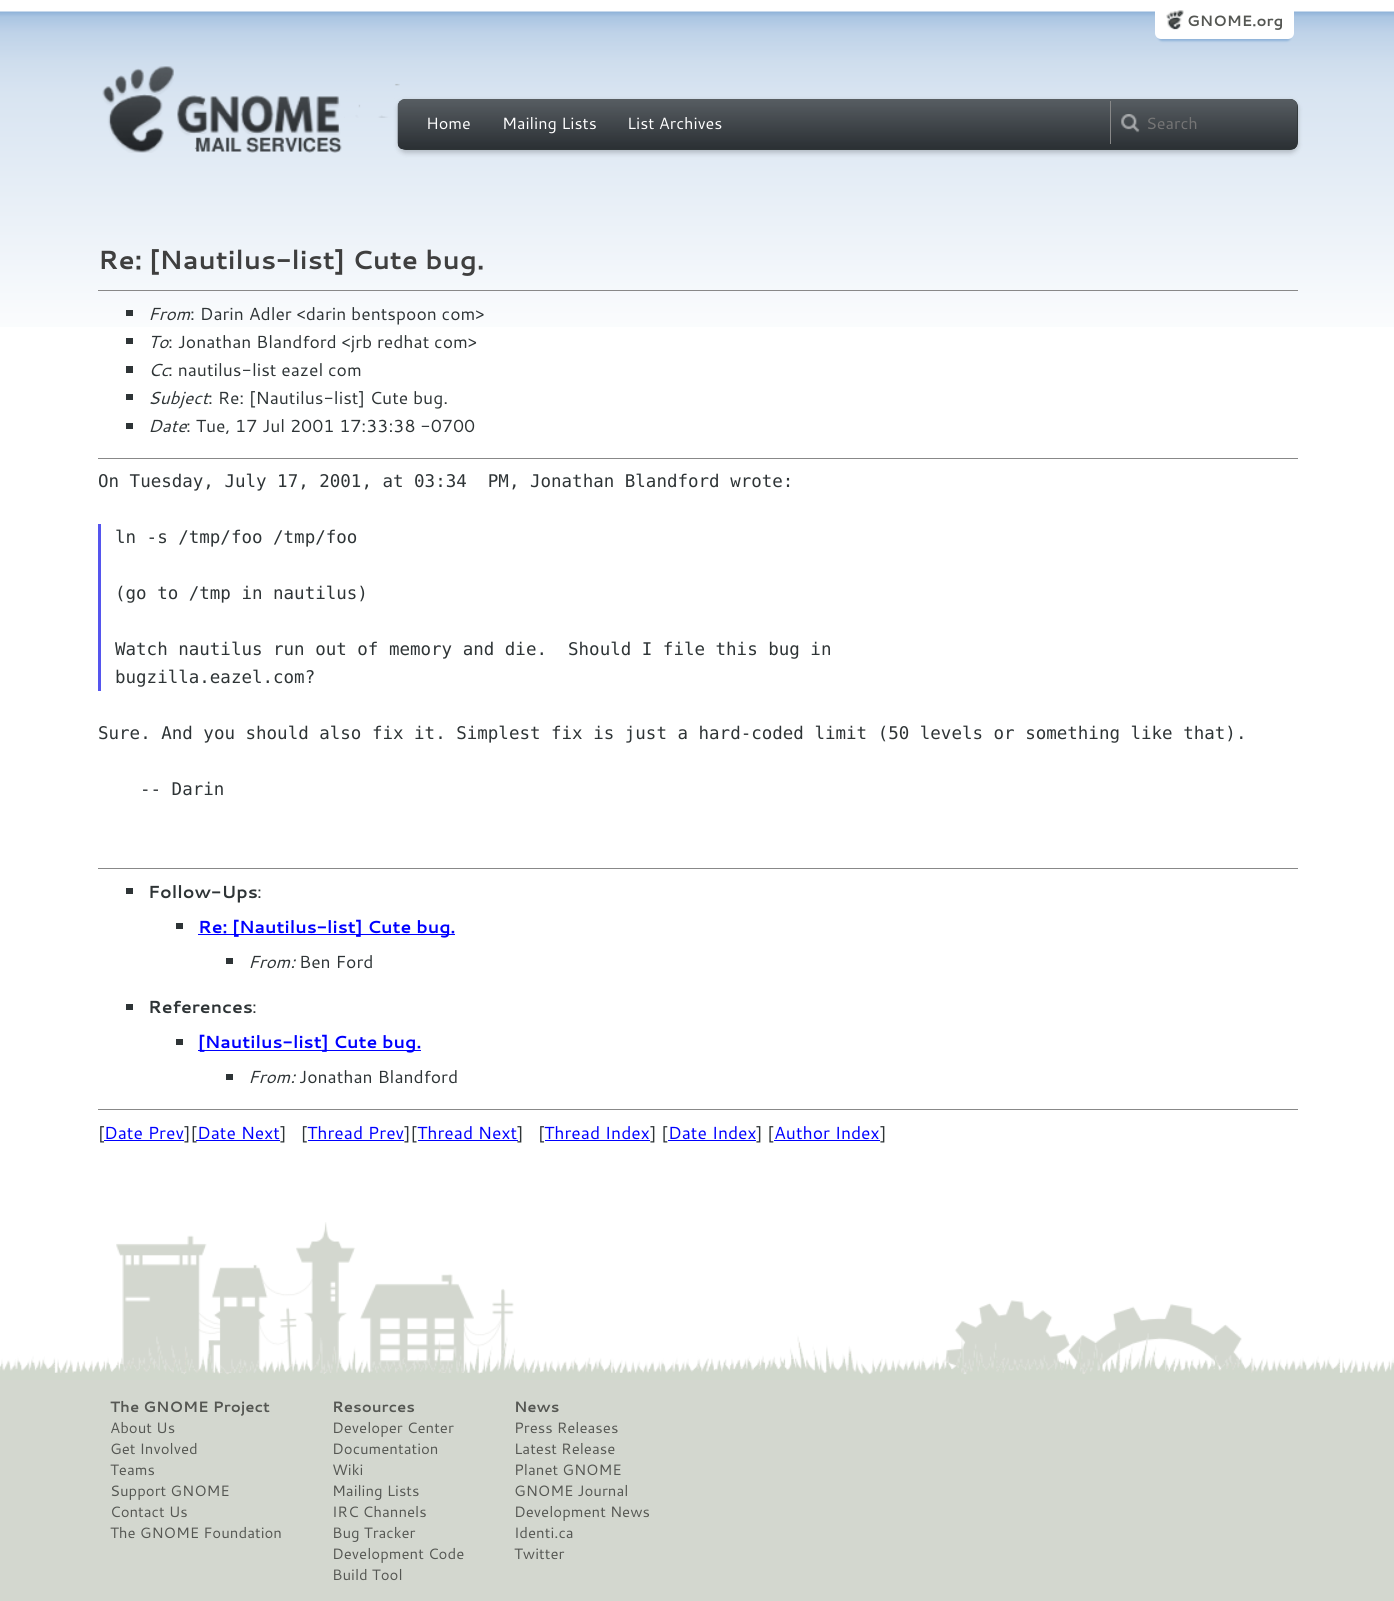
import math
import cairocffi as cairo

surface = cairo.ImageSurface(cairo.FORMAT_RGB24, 1394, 1601)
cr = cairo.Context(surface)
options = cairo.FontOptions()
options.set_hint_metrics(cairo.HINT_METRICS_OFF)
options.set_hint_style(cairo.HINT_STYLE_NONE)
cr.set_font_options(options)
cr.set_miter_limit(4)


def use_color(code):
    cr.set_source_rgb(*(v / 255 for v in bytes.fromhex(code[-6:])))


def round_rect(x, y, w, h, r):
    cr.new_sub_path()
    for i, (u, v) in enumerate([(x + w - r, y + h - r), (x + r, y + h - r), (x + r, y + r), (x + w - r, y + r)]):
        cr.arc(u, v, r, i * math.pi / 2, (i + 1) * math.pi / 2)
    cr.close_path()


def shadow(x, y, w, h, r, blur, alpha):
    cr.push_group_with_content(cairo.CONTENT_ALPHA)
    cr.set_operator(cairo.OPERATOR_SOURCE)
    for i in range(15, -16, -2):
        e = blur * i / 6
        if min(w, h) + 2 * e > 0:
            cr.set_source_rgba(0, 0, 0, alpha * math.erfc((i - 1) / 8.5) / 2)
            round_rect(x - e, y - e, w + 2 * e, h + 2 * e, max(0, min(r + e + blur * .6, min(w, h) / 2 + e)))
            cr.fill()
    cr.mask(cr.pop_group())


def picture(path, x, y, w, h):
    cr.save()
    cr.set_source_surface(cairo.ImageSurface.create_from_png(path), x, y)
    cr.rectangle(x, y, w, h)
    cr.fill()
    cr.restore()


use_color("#ffffff")
cr.paint()
picture("img1.png", 0, 11, 1394, 316)
use_color("#8fb3d9")
shadow(1158, 11, 133, 30, 4, 1, 1)
use_color("#ffffff")
round_rect(1155, 4, 139, 35, 6)
cr.fill()
picture("img2.png", 1166, 10, 18, 20)
cr.select_font_face("Cantarell", cairo.FONT_SLANT_NORMAL, cairo.FONT_WEIGHT_BOLD)
cr.set_font_size(15)
use_color("#555753")
cr.move_to(1187, 26)
cr.show_text("GNOME.org")
picture("img3.png", 102, 66, 298, 87)
use_color("#000000")
shadow(398, 101, 900, 52, 8, 2.5, 0.2)
use_color("#2e3436")
round_rect(398, 99, 900, 51, 8)
cr.fill()
picture("img4.png", 397, 99, 901, 50)
cr.select_font_face("Cantarell")
cr.set_font_size(16.25)
use_color("#ffffff")
cr.move_to(426, 129)
cr.show_text("Home")
cr.move_to(502, 129)
cr.show_text("Mailing Lists")
cr.move_to(627, 129)
cr.show_text("List Archives")
picture("img5.png", 1121, 114, 19, 19)
use_color("#888888")
cr.rectangle(1110, 101, 1, 43)
cr.fill()
use_color("#757575")
cr.move_to(1146, 129)
cr.show_text("Search")
cr.select_font_face("Cantarell", cairo.FONT_SLANT_NORMAL, cairo.FONT_WEIGHT_BOLD)
cr.set_font_size(26.25)
use_color("#3f3f3f")
cr.move_to(98, 269)
cr.show_text("Re: [Nautilus-list] Cute bug.")
use_color("#888888")
cr.rectangle(98, 290, 1200, 1)
cr.fill()
use_color("#2e3436")
cr.rectangle(126, 310, 7, 6)
cr.fill()
cr.select_font_face("Cantarell", cairo.FONT_SLANT_ITALIC)
cr.set_font_size(17.5)
cr.move_to(148, 320)
cr.show_text("From")
cr.select_font_face("Cantarell")
cr.move_to(190, 320)
cr.show_text(": Darin Adler <darin bentspoon com>")
cr.rectangle(126, 338, 7, 6)
cr.fill()
cr.select_font_face("Cantarell", cairo.FONT_SLANT_ITALIC)
cr.move_to(148, 348)
cr.show_text("To")
cr.select_font_face("Cantarell")
cr.move_to(168, 348)
cr.show_text(": Jonathan Blandford <jrb redhat com>")
cr.rectangle(126, 366, 7, 7)
cr.fill()
cr.select_font_face("Cantarell", cairo.FONT_SLANT_ITALIC)
cr.move_to(148, 376)
cr.show_text("Cc")
cr.select_font_face("Cantarell")
cr.move_to(168, 376)
cr.show_text(": nautilus-list eazel com")
cr.rectangle(126, 394, 7, 6)
cr.fill()
cr.select_font_face("Cantarell", cairo.FONT_SLANT_ITALIC)
cr.move_to(148, 404)
cr.show_text("Subject")
cr.select_font_face("Cantarell")
cr.move_to(208, 404)
cr.show_text(": Re: [Nautilus-list] Cute bug.")
cr.rectangle(126, 423, 7, 6)
cr.fill()
cr.select_font_face("Cantarell", cairo.FONT_SLANT_ITALIC)
cr.move_to(148, 432)
cr.show_text("Date")
cr.select_font_face("Cantarell")
cr.move_to(186, 432)
cr.show_text(": Tue, 17 Jul 2001 17:33:38 -0700")
use_color("#888888")
cr.rectangle(98, 458, 1200, 1)
cr.fill()
cr.select_font_face("DejaVu Sans Mono")
use_color("#2e3436")
cr.move_to(98, 487)
cr.show_text("On Tuesday, July 17, 2001, at 03:34  PM, Jonathan Blandford wrote:")
use_color("#5555ee")
cr.rectangle(98, 524, 3, 167)
cr.fill()
use_color("#2e3436")
cr.move_to(115, 543)
cr.show_text("ln -s /tmp/foo /tmp/foo")
cr.move_to(115, 599)
cr.show_text("(go to /tmp in nautilus)")
cr.move_to(115, 655)
cr.show_text("Watch nautilus run out of memory and die.  Should I file this bug in")
cr.move_to(115, 683)
cr.show_text("bugzilla.eazel.com?")
cr.move_to(98, 739)
cr.show_text("Sure. And you should also fix it. Simplest fix is just a hard-coded limit (50 levels or something like that).")
cr.move_to(140, 795)
cr.show_text("-- Darin")
use_color("#888888")
cr.rectangle(98, 868, 1200, 1)
cr.fill()
use_color("#2e3436")
cr.rectangle(126, 888, 7, 6)
cr.fill()
cr.select_font_face("Cantarell", cairo.FONT_SLANT_NORMAL, cairo.FONT_WEIGHT_BOLD)
cr.move_to(148, 898)
cr.show_text("Follow-Ups")
cr.select_font_face("Cantarell")
cr.move_to(257, 898)
cr.show_text(":")
cr.rectangle(176, 923, 7, 6)
cr.fill()
use_color("#0000ff")
cr.rectangle(198, 934, 257, 1)
cr.fill()
cr.select_font_face("Cantarell", cairo.FONT_SLANT_NORMAL, cairo.FONT_WEIGHT_BOLD)
cr.move_to(198, 933)
cr.show_text("Re: [Nautilus-list] Cute bug.")
use_color("#2e3436")
cr.rectangle(226, 958, 7, 6)
cr.fill()
cr.select_font_face("Cantarell", cairo.FONT_SLANT_ITALIC)
cr.move_to(248, 968)
cr.show_text("From:")
cr.select_font_face("Cantarell")
cr.move_to(299, 968)
cr.show_text("Ben Ford")
cr.rectangle(126, 1004, 7, 6)
cr.fill()
cr.select_font_face("Cantarell", cairo.FONT_SLANT_NORMAL, cairo.FONT_WEIGHT_BOLD)
cr.move_to(148, 1013)
cr.show_text("References")
cr.select_font_face("Cantarell")
cr.move_to(252, 1013)
cr.show_text(":")
cr.rectangle(176, 1039, 7, 6)
cr.fill()
use_color("#0000ff")
cr.rectangle(198, 1050, 223, 1)
cr.fill()
cr.select_font_face("Cantarell", cairo.FONT_SLANT_NORMAL, cairo.FONT_WEIGHT_BOLD)
cr.move_to(198, 1048)
cr.show_text("[Nautilus-list] Cute bug.")
use_color("#2e3436")
cr.rectangle(226, 1074, 7, 6)
cr.fill()
cr.select_font_face("Cantarell", cairo.FONT_SLANT_ITALIC)
cr.move_to(248, 1083)
cr.show_text("From:")
cr.select_font_face("Cantarell")
cr.move_to(299, 1083)
cr.show_text("Jonathan Blandford")
use_color("#888888")
cr.rectangle(98, 1109, 1200, 1)
cr.fill()
use_color("#2e3436")
cr.move_to(98, 1139)
cr.show_text("[")
use_color("#0000ff")
cr.move_to(104, 1139)
cr.show_text("Date Prev")
cr.rectangle(104, 1140, 80, 1)
cr.fill()
use_color("#2e3436")
cr.move_to(184, 1139)
cr.show_text("][")
use_color("#0000ff")
cr.move_to(197, 1139)
cr.show_text("Date Next")
cr.rectangle(196, 1140, 84, 1)
cr.fill()
use_color("#2e3436")
cr.move_to(280, 1139)
cr.show_text("]   [")
use_color("#0000ff")
cr.move_to(307, 1139)
cr.show_text("Thread Prev")
cr.rectangle(308, 1140, 96, 1)
cr.fill()
use_color("#2e3436")
cr.move_to(404, 1139)
cr.show_text("][")
use_color("#0000ff")
cr.move_to(417, 1139)
cr.show_text("Thread Next")
cr.rectangle(418, 1140, 100, 1)
cr.fill()
use_color("#2e3436")
cr.move_to(517, 1139)
cr.show_text("]")
cr.move_to(538, 1139)
cr.show_text("[")
use_color("#0000ff")
cr.move_to(544, 1139)
cr.show_text("Thread Index")
cr.rectangle(545, 1140, 105, 1)
cr.fill()
use_color("#2e3436")
cr.move_to(650, 1139)
cr.show_text("] [")
use_color("#0000ff")
cr.move_to(668, 1139)
cr.show_text("Date Index")
cr.rectangle(668, 1140, 88, 1)
cr.fill()
use_color("#2e3436")
cr.move_to(756, 1139)
cr.show_text("] [")
use_color("#0000ff")
cr.move_to(774, 1139)
cr.show_text("Author Index")
cr.rectangle(774, 1140, 106, 1)
cr.fill()
use_color("#2e3436")
cr.move_to(880, 1139)
cr.show_text("]")
picture("img6.png", 116, 1222, 1148, 151)
picture("img7.png", 0, 1333, 1394, 47)
use_color("#d3d7cf")
cr.rectangle(0, 1380, 1394, 221)
cr.fill()
cr.select_font_face("Cantarell", cairo.FONT_SLANT_NORMAL, cairo.FONT_WEIGHT_BOLD)
cr.set_font_size(15)
use_color("#555753")
cr.move_to(110, 1412)
cr.show_text("The GNOME Project")
cr.select_font_face("Cantarell")
cr.move_to(110, 1433)
cr.show_text("About Us")
cr.move_to(110, 1454)
cr.show_text("Get Involved")
cr.move_to(110, 1475)
cr.show_text("Teams")
cr.move_to(110, 1496)
cr.show_text("Support GNOME")
cr.move_to(110, 1517)
cr.show_text("Contact Us")
cr.move_to(110, 1538)
cr.show_text("The GNOME Foundation")
cr.select_font_face("Cantarell", cairo.FONT_SLANT_NORMAL, cairo.FONT_WEIGHT_BOLD)
cr.move_to(332, 1412)
cr.show_text("Resources")
cr.select_font_face("Cantarell")
cr.move_to(332, 1433)
cr.show_text("Developer Center")
cr.move_to(332, 1454)
cr.show_text("Documentation")
cr.move_to(332, 1475)
cr.show_text("Wiki")
cr.move_to(332, 1496)
cr.show_text("Mailing Lists")
cr.move_to(332, 1517)
cr.show_text("IRC Channels")
cr.move_to(332, 1538)
cr.show_text("Bug Tracker")
cr.move_to(332, 1559)
cr.show_text("Development Code")
cr.move_to(332, 1580)
cr.show_text("Build Tool")
cr.select_font_face("Cantarell", cairo.FONT_SLANT_NORMAL, cairo.FONT_WEIGHT_BOLD)
cr.move_to(514, 1412)
cr.show_text("News")
cr.select_font_face("Cantarell")
cr.move_to(514, 1433)
cr.show_text("Press Releases")
cr.move_to(514, 1454)
cr.show_text("Latest Release")
cr.move_to(514, 1475)
cr.show_text("Planet GNOME")
cr.move_to(514, 1496)
cr.show_text("GNOME Journal")
cr.move_to(514, 1517)
cr.show_text("Development News")
cr.move_to(514, 1538)
cr.show_text("Identi.ca")
cr.move_to(514, 1559)
cr.show_text("Twitter")
surface.write_to_png("result.png")
